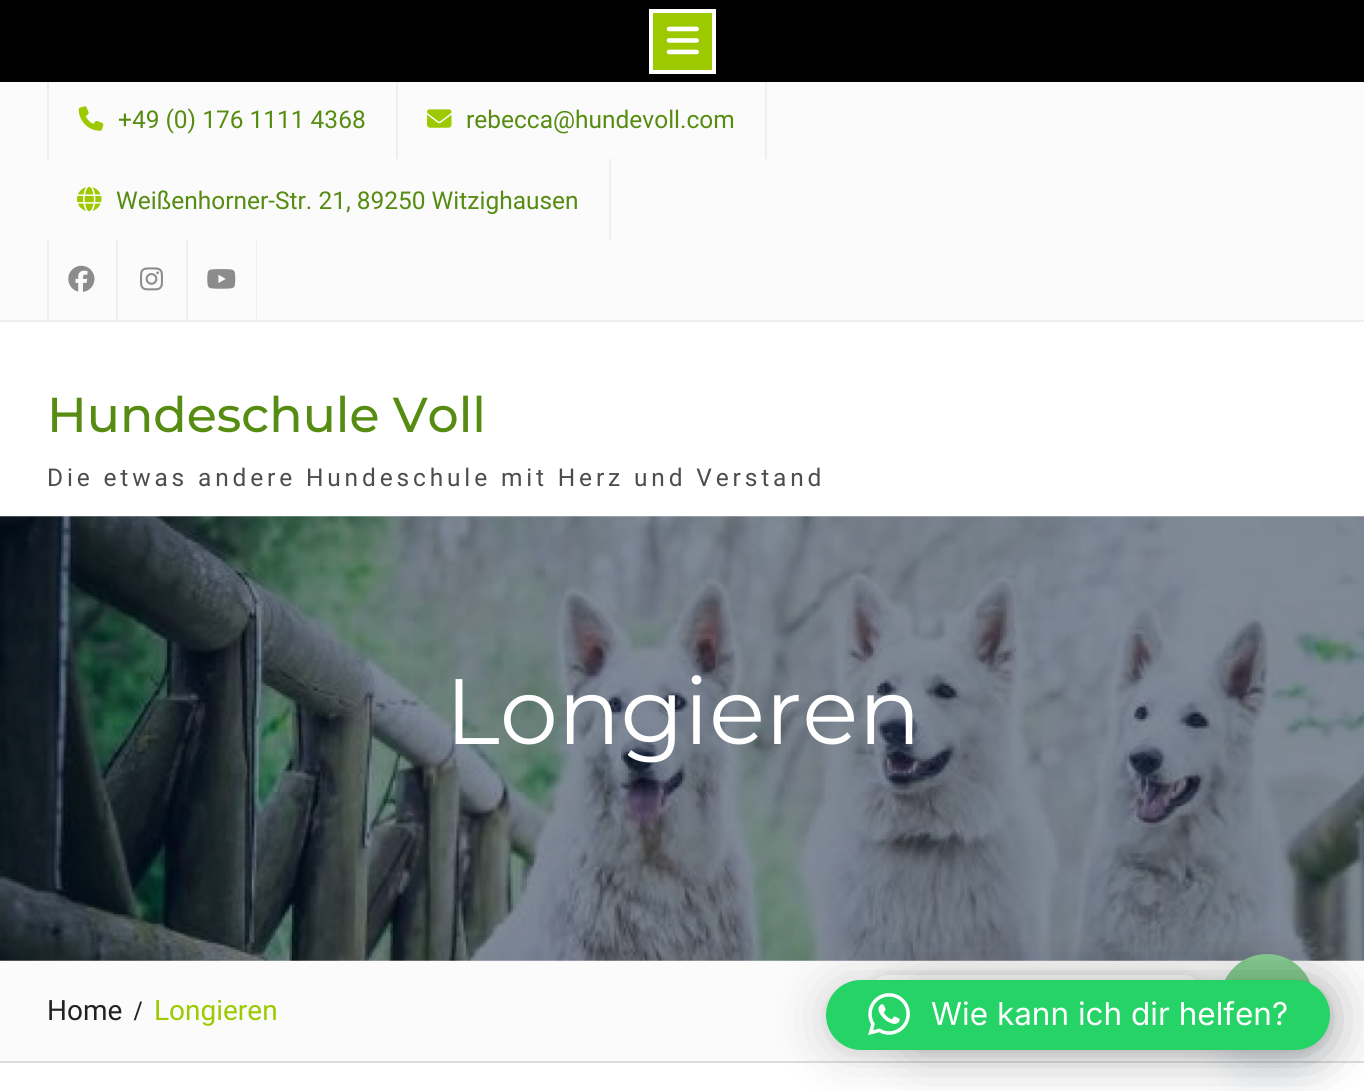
import math
import cairocffi as cairo

surface = cairo.ImageSurface(cairo.FORMAT_RGB24, 1364, 1091)
cr = cairo.Context(surface)
options = cairo.FontOptions()
options.set_hint_metrics(cairo.HINT_METRICS_OFF)
options.set_hint_style(cairo.HINT_STYLE_NONE)
cr.set_font_options(options)
cr.set_miter_limit(4)


def use_color(code):
    cr.set_source_rgb(*(v / 255 for v in bytes.fromhex(code[-6:])))


def spaced_text(x, y, s, letter, word):
    cr.move_to(x, y)
    for ch in s:
        cr.show_text(ch)
        cr.rel_move_to(letter + word * (ch == ' '), 0)


def round_rect(x, y, w, h, r):
    cr.new_sub_path()
    for i, (u, v) in enumerate([(x + w - r, y + h - r), (x + r, y + h - r), (x + r, y + r), (x + w - r, y + r)]):
        cr.arc(u, v, r, i * math.pi / 2, (i + 1) * math.pi / 2)
    cr.close_path()


def shadow(x, y, w, h, r, blur, alpha):
    cr.push_group_with_content(cairo.CONTENT_ALPHA)
    cr.set_operator(cairo.OPERATOR_SOURCE)
    for i in range(15, -16, -2):
        e = blur * i / 6
        if min(w, h) + 2 * e > 0:
            cr.set_source_rgba(0, 0, 0, alpha * math.erfc((i - 1) / 8.5) / 2)
            round_rect(x - e, y - e, w + 2 * e, h + 2 * e, max(0, min(r + e + blur * .6, min(w, h) / 2 + e)))
            cr.fill()
    cr.mask(cr.pop_group())


def picture(path, x, y, w, h):
    cr.save()
    cr.set_source_surface(cairo.ImageSurface.create_from_png(path), x, y)
    cr.rectangle(x, y, w, h)
    cr.fill()
    cr.restore()


use_color("#ffffff")
cr.paint()
use_color("#fbfbfb")
cr.rectangle(0, 82, 1364, 238)
cr.fill()
use_color("#eeeeee")
cr.rectangle(396, 79, 2, 80)
cr.fill()
cr.rectangle(47, 79, 2, 80)
cr.fill()
cr.rectangle(765, 79, 2, 80)
cr.fill()
use_color("#000000")
cr.rectangle(0, 0, 1364, 82)
cr.fill()
use_color("#9cc900")
cr.rectangle(651, 11, 63, 61)
cr.fill_preserve()
use_color("#fffffe")
cr.set_line_width(4)
cr.stroke()
picture("img1.png", 666, 26, 33, 29)
use_color("#eeeeee")
cr.rectangle(0, 320, 1364, 2)
cr.fill()
picture("img2.png", 78, 106, 26, 25)
cr.select_font_face("Roboto")
cr.set_font_size(24.5)
use_color("#568c11")
cr.move_to(118, 128)
cr.show_text("+49 (0) 176 1111 4368")
picture("img3.png", 427, 109, 25, 19)
cr.move_to(466, 128)
cr.show_text("rebecca@hundevoll.com")
use_color("#eeeeee")
cr.rectangle(609, 159, 2, 81)
cr.fill()
picture("img4.png", 77, 186, 25, 26)
use_color("#568c11")
cr.move_to(116, 209)
cr.show_text("Weißenhorner-Str. 21, 89250 Witzighausen")
use_color("#eeeeee")
cr.rectangle(116, 240, 2, 80)
cr.fill()
cr.rectangle(47, 240, 2, 80)
cr.fill()
picture("img5.png", 68, 265, 27, 27)
cr.rectangle(186, 240, 2, 80)
cr.fill()
picture("img6.png", 140, 267, 23, 24)
cr.rectangle(256, 240, 1, 80)
cr.fill()
picture("img7.png", 207, 269, 29, 20)
cr.select_font_face("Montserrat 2 Thin")
cr.set_font_size(49)
use_color("#568c11")
cr.move_to(47, 432)
cr.show_text("Hundeschule Voll")
cr.select_font_face("Roboto")
cr.set_font_size(24.5)
use_color("#4d4d4d")
spaced_text(47, 486, "Die etwas andere Hundeschule mit Herz und Verstand", 3.85, 0)
picture("img8.png", 0, 516, 1364, 445)
cr.select_font_face("Montserrat Thin")
cr.set_font_size(92.75)
use_color("#ffffff")
cr.move_to(445, 744)
cr.show_text("Longieren")
use_color("#fbfbfb")
cr.rectangle(0, 961, 1364, 100)
cr.fill()
use_color("#dddddd")
cr.rectangle(0, 1061, 1364, 2)
cr.fill()
cr.select_font_face("Roboto")
cr.set_font_size(28)
use_color("#222222")
cr.move_to(47, 1020)
cr.show_text("Home")
cr.select_font_face("Liberation Serif", cairo.FONT_SLANT_NORMAL, cairo.FONT_WEIGHT_BOLD)
cr.move_to(134, 1020)
cr.show_text("/")
cr.select_font_face("Roboto")
use_color("#9cc900")
cr.move_to(154, 1020)
cr.show_text("Longieren")
use_color("#000000")
shadow(870, 977, 332, 54, 18, 7, 0.15)
use_color("#ffffff")
round_rect(870, 975, 332, 54, 18)
cr.fill()
use_color("#49687e")
shadow(1220, 982, 94, 94, 47, 21, 0.16)
use_color("#86cd91")
cr.arc(1267, 1001, 47, 0, 2 * math.pi)
cr.fill()
use_color("#000000")
shadow(901, 984, 429, 70, 35, 28, 0.16)
shadow(901, 982, 429, 70, 35, 5, 0.06)
shadow(826, 984, 504, 70, 35, 28, 0.16)
shadow(826, 982, 504, 70, 35, 5, 0.06)
use_color("#25d366")
round_rect(826, 980, 504, 70, 35)
cr.fill()
picture("img9.png", 868, 993, 42, 43)
cr.select_font_face("Inter")
cr.set_font_size(31.5)
use_color("#ffffff")
cr.move_to(931, 1025)
cr.show_text("Wie kann ich dir helfen?")
surface.write_to_png("result.png")
